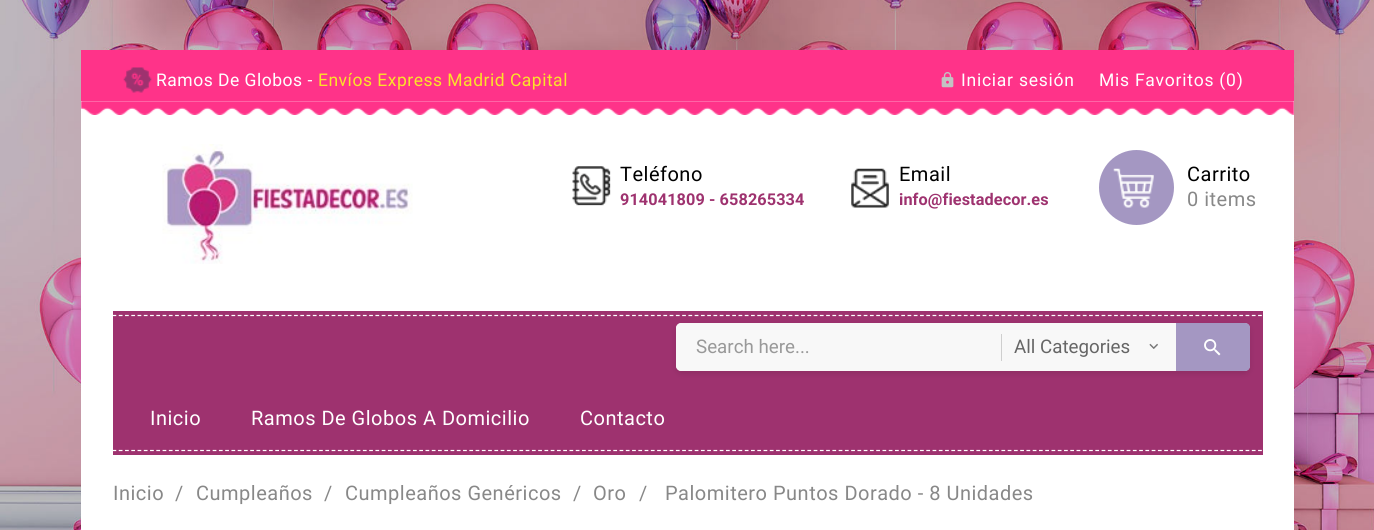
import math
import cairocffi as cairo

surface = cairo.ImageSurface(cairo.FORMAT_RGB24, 1374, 530)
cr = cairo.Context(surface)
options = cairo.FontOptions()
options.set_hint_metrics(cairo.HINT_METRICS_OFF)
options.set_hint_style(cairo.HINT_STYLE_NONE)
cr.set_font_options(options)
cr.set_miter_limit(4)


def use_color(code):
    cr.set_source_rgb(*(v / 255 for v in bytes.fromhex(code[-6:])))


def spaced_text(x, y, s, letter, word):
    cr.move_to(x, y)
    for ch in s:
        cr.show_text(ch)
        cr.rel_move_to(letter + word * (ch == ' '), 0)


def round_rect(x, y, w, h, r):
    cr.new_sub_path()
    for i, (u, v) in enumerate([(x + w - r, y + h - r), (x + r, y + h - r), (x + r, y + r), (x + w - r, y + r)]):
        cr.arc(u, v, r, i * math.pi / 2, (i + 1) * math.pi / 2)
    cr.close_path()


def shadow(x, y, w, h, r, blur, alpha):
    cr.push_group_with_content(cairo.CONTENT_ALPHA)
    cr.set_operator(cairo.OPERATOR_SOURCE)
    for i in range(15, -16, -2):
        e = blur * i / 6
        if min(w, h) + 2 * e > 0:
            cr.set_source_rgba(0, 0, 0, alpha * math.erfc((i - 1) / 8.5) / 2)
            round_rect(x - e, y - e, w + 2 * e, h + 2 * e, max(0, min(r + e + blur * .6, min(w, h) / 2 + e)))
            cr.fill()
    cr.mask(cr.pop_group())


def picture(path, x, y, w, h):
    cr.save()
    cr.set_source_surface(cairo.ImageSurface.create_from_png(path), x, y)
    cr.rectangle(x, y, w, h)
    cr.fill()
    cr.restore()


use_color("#ffffff")
cr.paint()
picture("img1.png", 0, 0, 1374, 530)
use_color("#ffffff")
cr.rectangle(81, 101, 1213, 429)
cr.fill()
use_color("#ff3389")
cr.rectangle(81, 50, 1213, 51)
cr.fill()
picture("img2.png", 123, 67, 29, 26)
cr.select_font_face("Roboto")
cr.set_font_size(17.5)
use_color("#ffffff")
spaced_text(156, 86, "Ramos De Globos -", 0.5, 0)
use_color("#fbe329")
spaced_text(318, 86, "Envíos Express Madrid Capital", 0.5, 0)
picture("img3.png", 941, 72, 13, 16)
use_color("#ffffff")
spaced_text(961, 86, "Iniciar sesión", 0.75, 0)
spaced_text(1099, 86, "Mis Favoritos (0)", 0.75, 0)
picture("img4.png", 81, 101, 1213, 14)
picture("img5.png", 162, 144, 251, 120)
picture("img6.png", 572, 166, 39, 40)
cr.set_font_size(20)
use_color("#000000")
spaced_text(620, 181, "Teléfono", 0.5, 0)
cr.select_font_face("Roboto", cairo.FONT_SLANT_NORMAL, cairo.FONT_WEIGHT_BOLD)
cr.set_font_size(16.25)
use_color("#9e326f")
spaced_text(620, 205, "914041809 - 658265334", 0.1, 0)
picture("img7.png", 851, 168, 38, 40)
cr.select_font_face("Roboto")
cr.set_font_size(20)
use_color("#000000")
spaced_text(899, 181, "Email", 0.5, 0)
cr.select_font_face("Roboto", cairo.FONT_SLANT_NORMAL, cairo.FONT_WEIGHT_BOLD)
cr.set_font_size(16.25)
use_color("#9e326f")
spaced_text(899, 205, "info@fiestadecor.es", 0.1, 0)
use_color("#a497c2")
cr.new_path()
cr.arc(1136.5, 187.5, 37.5, 0, 2 * math.pi)
cr.fill()
cr.select_font_face("Roboto")
cr.set_font_size(20)
use_color("#000000")
spaced_text(1187, 181, "Carrito", 0.5, 0)
picture("img8.png", 1113, 168, 41, 40)
use_color("#888888")
spaced_text(1187, 206, "0 items", 0.5, 0)
use_color("#9e326f")
cr.rectangle(113, 311, 1150, 144)
cr.fill()
use_color("#000000")
shadow(676, 325, 574, 49, 6, 3, 0.1)
cr.new_path()
cr.move_to(112.5, 315.5)
cr.line_to(1262.5, 315.5)
use_color("#ffffff")
cr.set_line_width(1.2)
cr.set_dash([3.75, 2.51])
cr.stroke()
use_color("#f8f8f8")
round_rect(676, 323, 574, 48, 6)
cr.fill()
round_rect(676, 323, 325, 48, 5)
cr.fill()
cr.set_font_size(18.75)
use_color("#999999")
cr.move_to(696, 353)
cr.show_text("Search here...")
use_color("#cfcfcf")
cr.rectangle(1001, 334, 1, 27)
cr.fill()
use_color("#666666")
cr.move_to(1014, 353)
cr.show_text("All Categories")
picture("img9.png", 1149, 343, 9, 6)
use_color("#a497c2")
cr.new_path()
cr.move_to(1176, 323)
cr.line_to(1245, 323)
cr.curve_to(1248, 323, 1250, 325, 1250, 328)
cr.line_to(1250, 366)
cr.curve_to(1250, 369, 1248, 371, 1245, 371)
cr.line_to(1176, 371)
cr.close_path()
cr.fill()
picture("img10.png", 1204, 339, 17, 17)
cr.set_font_size(20)
use_color("#ffffff")
spaced_text(150, 425, "Inicio", 0.5, 0)
spaced_text(251, 425, "Ramos De Globos A Domicilio", 0.5, 0)
spaced_text(580, 425, "Contacto", 0.5, 0)
cr.new_path()
cr.move_to(112.5, 450.5)
cr.line_to(1262.5, 450.5)
cr.stroke()
use_color("#888888")
spaced_text(113, 500, "Inicio", 0.5, 0)
spaced_text(175, 500, "/", 0.75, 0)
spaced_text(196, 500, "Cumpleaños", 0.5, 0)
spaced_text(324, 500, "/", 0.75, 0)
spaced_text(345, 500, "Cumpleaños Genéricos", 0.5, 0)
spaced_text(573, 500, "/", 0.75, 0)
spaced_text(593, 500, "Oro", 0.5, 0)
spaced_text(639, 500, "/", 0.75, 0)
spaced_text(665, 500, "Palomitero Puntos Dorado - 8 Unidades", 0.5, 0)
surface.write_to_png("result.png")
